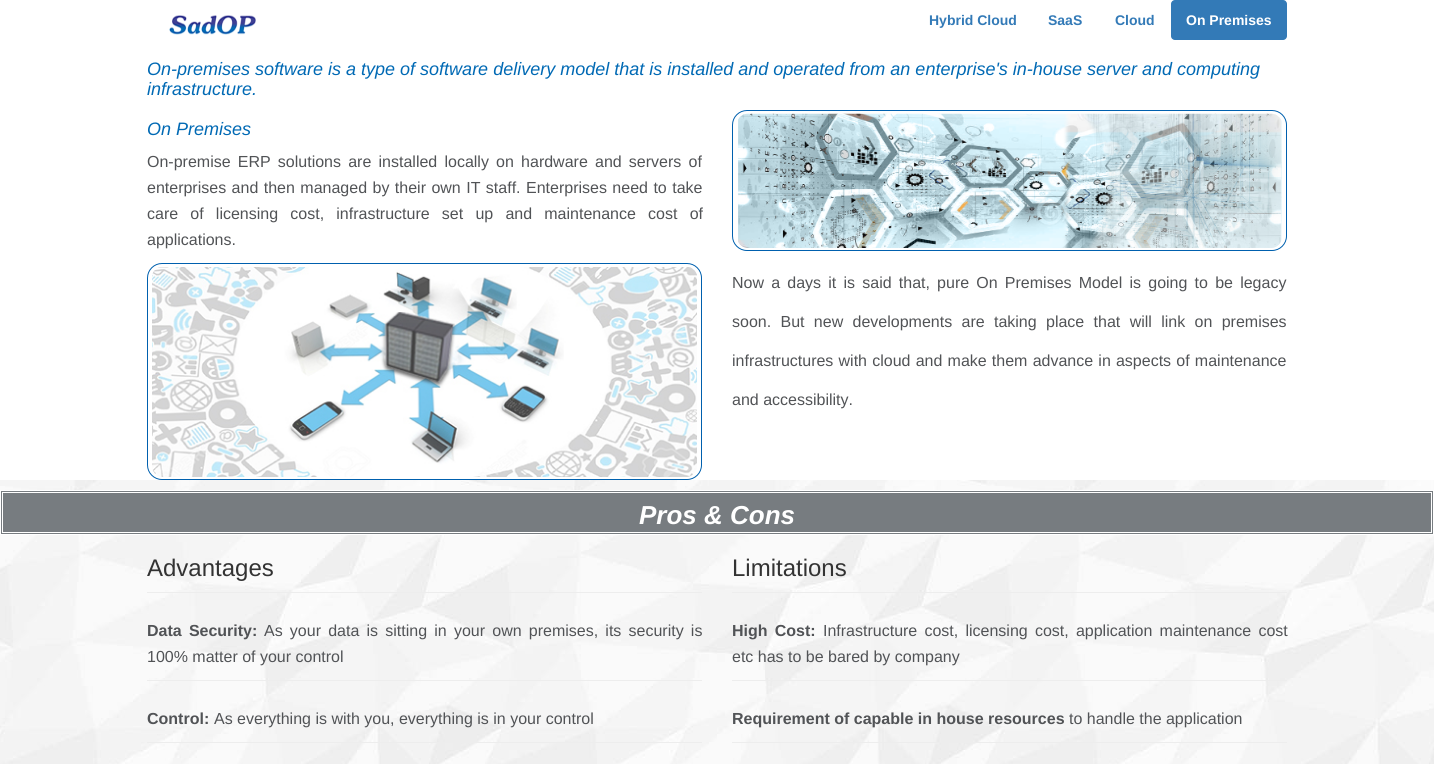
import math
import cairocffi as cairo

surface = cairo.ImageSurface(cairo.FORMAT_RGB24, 1434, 764)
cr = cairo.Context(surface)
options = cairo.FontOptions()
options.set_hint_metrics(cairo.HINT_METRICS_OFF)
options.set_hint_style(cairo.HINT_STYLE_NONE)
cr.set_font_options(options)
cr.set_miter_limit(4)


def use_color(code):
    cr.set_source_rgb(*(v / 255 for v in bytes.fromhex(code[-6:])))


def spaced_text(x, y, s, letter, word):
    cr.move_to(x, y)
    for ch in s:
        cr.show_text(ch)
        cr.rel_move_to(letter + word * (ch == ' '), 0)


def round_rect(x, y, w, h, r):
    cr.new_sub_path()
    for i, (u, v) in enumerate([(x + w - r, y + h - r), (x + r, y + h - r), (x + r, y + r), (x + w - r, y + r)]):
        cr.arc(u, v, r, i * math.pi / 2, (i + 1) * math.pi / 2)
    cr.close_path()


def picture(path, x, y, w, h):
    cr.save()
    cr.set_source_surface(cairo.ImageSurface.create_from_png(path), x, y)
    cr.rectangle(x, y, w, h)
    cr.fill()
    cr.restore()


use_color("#ffffff")
cr.paint()
picture("img1.png", 169, 15, 87, 20)
cr.select_font_face("Liberation Sans", cairo.FONT_SLANT_NORMAL, cairo.FONT_WEIGHT_BOLD)
cr.set_font_size(14)
use_color("#337ab7")
cr.move_to(929, 25)
cr.show_text("Hybrid Cloud")
cr.move_to(1048, 25)
cr.show_text("SaaS")
cr.move_to(1115, 25)
cr.show_text("Cloud")
round_rect(1171, 0, 116, 40, 4)
cr.fill()
use_color("#ffffff")
cr.move_to(1186, 25)
cr.show_text("On Premises")
cr.select_font_face("Liberation Sans", cairo.FONT_SLANT_ITALIC)
cr.set_font_size(18)
use_color("#0069b4")
cr.move_to(147, 75)
cr.show_text("On-premises software is a type of software delivery model that is installed and operated from an enterprise's in-house server and computing")
cr.move_to(147, 95)
cr.show_text("infrastructure.")
cr.move_to(147, 135)
cr.show_text("On Premises")
cr.select_font_face("Liberation Sans")
cr.set_font_size(16)
use_color("#515356")
spaced_text(147, 167, "On-premise ERP solutions are installed locally on hardware and servers of", 0, 2.75)
spaced_text(147, 193, "enterprises and then managed by their own IT staff. Enterprises need to take", 0, 1)
spaced_text(147, 219, "care of licensing cost, infrastructure set up and maintenance cost of", 0, 7.75)
cr.move_to(147, 245)
cr.show_text("applications.")
round_rect(732.5, 110.5, 554, 140, 14.5)
use_color("#0060ae")
cr.set_line_width(1)
cr.stroke()
picture("img2.png", 738, 113, 544, 135)
round_rect(147.5, 263.5, 554, 216, 14.5)
cr.stroke()
picture("img3.png", 152, 267, 545, 210)
use_color("#515356")
spaced_text(732, 288, "Now a days it is said that, pure On Premises Model is going to be legacy", 0, 2.75)
spaced_text(732, 327, "soon. But new developments are taking place that will link on premises", 0, 4.9)
spaced_text(732, 366, "infrastructures with cloud and make them advance in aspects of maintenance", 0, 0.75)
cr.move_to(732, 405)
cr.show_text("and accessibility.")
picture("img4.png", 0, 480, 1434, 284)
use_color("#777c80")
cr.rectangle(0.5, 490.5, 1433, 44)
cr.fill_preserve()
use_color("#ffffff")
cr.stroke()
cr.rectangle(2.5, 492.5, 1429, 40)
cr.stroke()
cr.select_font_face("Liberation Sans", cairo.FONT_SLANT_ITALIC, cairo.FONT_WEIGHT_BOLD)
cr.set_font_size(26)
cr.move_to(639, 524)
cr.show_text("Pros & Cons")
use_color("#ededed")
cr.rectangle(147, 592, 555, 1)
cr.fill()
cr.select_font_face("Liberation Sans")
cr.set_font_size(24)
use_color("#333333")
cr.move_to(147, 576)
cr.show_text("Advantages")
use_color("#ededed")
cr.rectangle(147, 680, 555, 1)
cr.fill()
cr.select_font_face("Liberation Sans", cairo.FONT_SLANT_NORMAL, cairo.FONT_WEIGHT_BOLD)
cr.set_font_size(16)
use_color("#515356")
spaced_text(147, 636, "Data Security:", 0, 2.75)
cr.select_font_face("Liberation Sans")
spaced_text(264, 636, "As your data is sitting in your own premises, its security is", 0, 2.75)
cr.move_to(147, 662)
cr.show_text("100% matter of your control")
use_color("#ededed")
cr.rectangle(147, 742, 555, 1)
cr.fill()
cr.select_font_face("Liberation Sans", cairo.FONT_SLANT_NORMAL, cairo.FONT_WEIGHT_BOLD)
use_color("#515356")
cr.move_to(147, 724)
cr.show_text("Control:")
cr.select_font_face("Liberation Sans")
cr.move_to(214, 724)
cr.show_text("As everything is with you, everything is in your control")
use_color("#ededed")
cr.rectangle(732, 592, 555, 1)
cr.fill()
cr.set_font_size(24)
use_color("#333333")
cr.move_to(732, 576)
cr.show_text("Limitations")
use_color("#ededed")
cr.rectangle(732, 680, 555, 1)
cr.fill()
cr.select_font_face("Liberation Sans", cairo.FONT_SLANT_NORMAL, cairo.FONT_WEIGHT_BOLD)
cr.set_font_size(16)
use_color("#515356")
spaced_text(732, 636, "High Cost:", 0, 2.75)
cr.select_font_face("Liberation Sans")
spaced_text(823, 636, "Infrastructure cost, licensing cost, application maintenance cost", 0, 2.75)
cr.move_to(732, 662)
cr.show_text("etc has to be bared by company")
use_color("#ededed")
cr.rectangle(732, 742, 555, 1)
cr.fill()
cr.select_font_face("Liberation Sans", cairo.FONT_SLANT_NORMAL, cairo.FONT_WEIGHT_BOLD)
use_color("#515356")
cr.move_to(732, 724)
cr.show_text("Requirement of capable in house resources")
cr.select_font_face("Liberation Sans")
cr.move_to(1069, 724)
cr.show_text("to handle the application")
surface.write_to_png("result.png")
